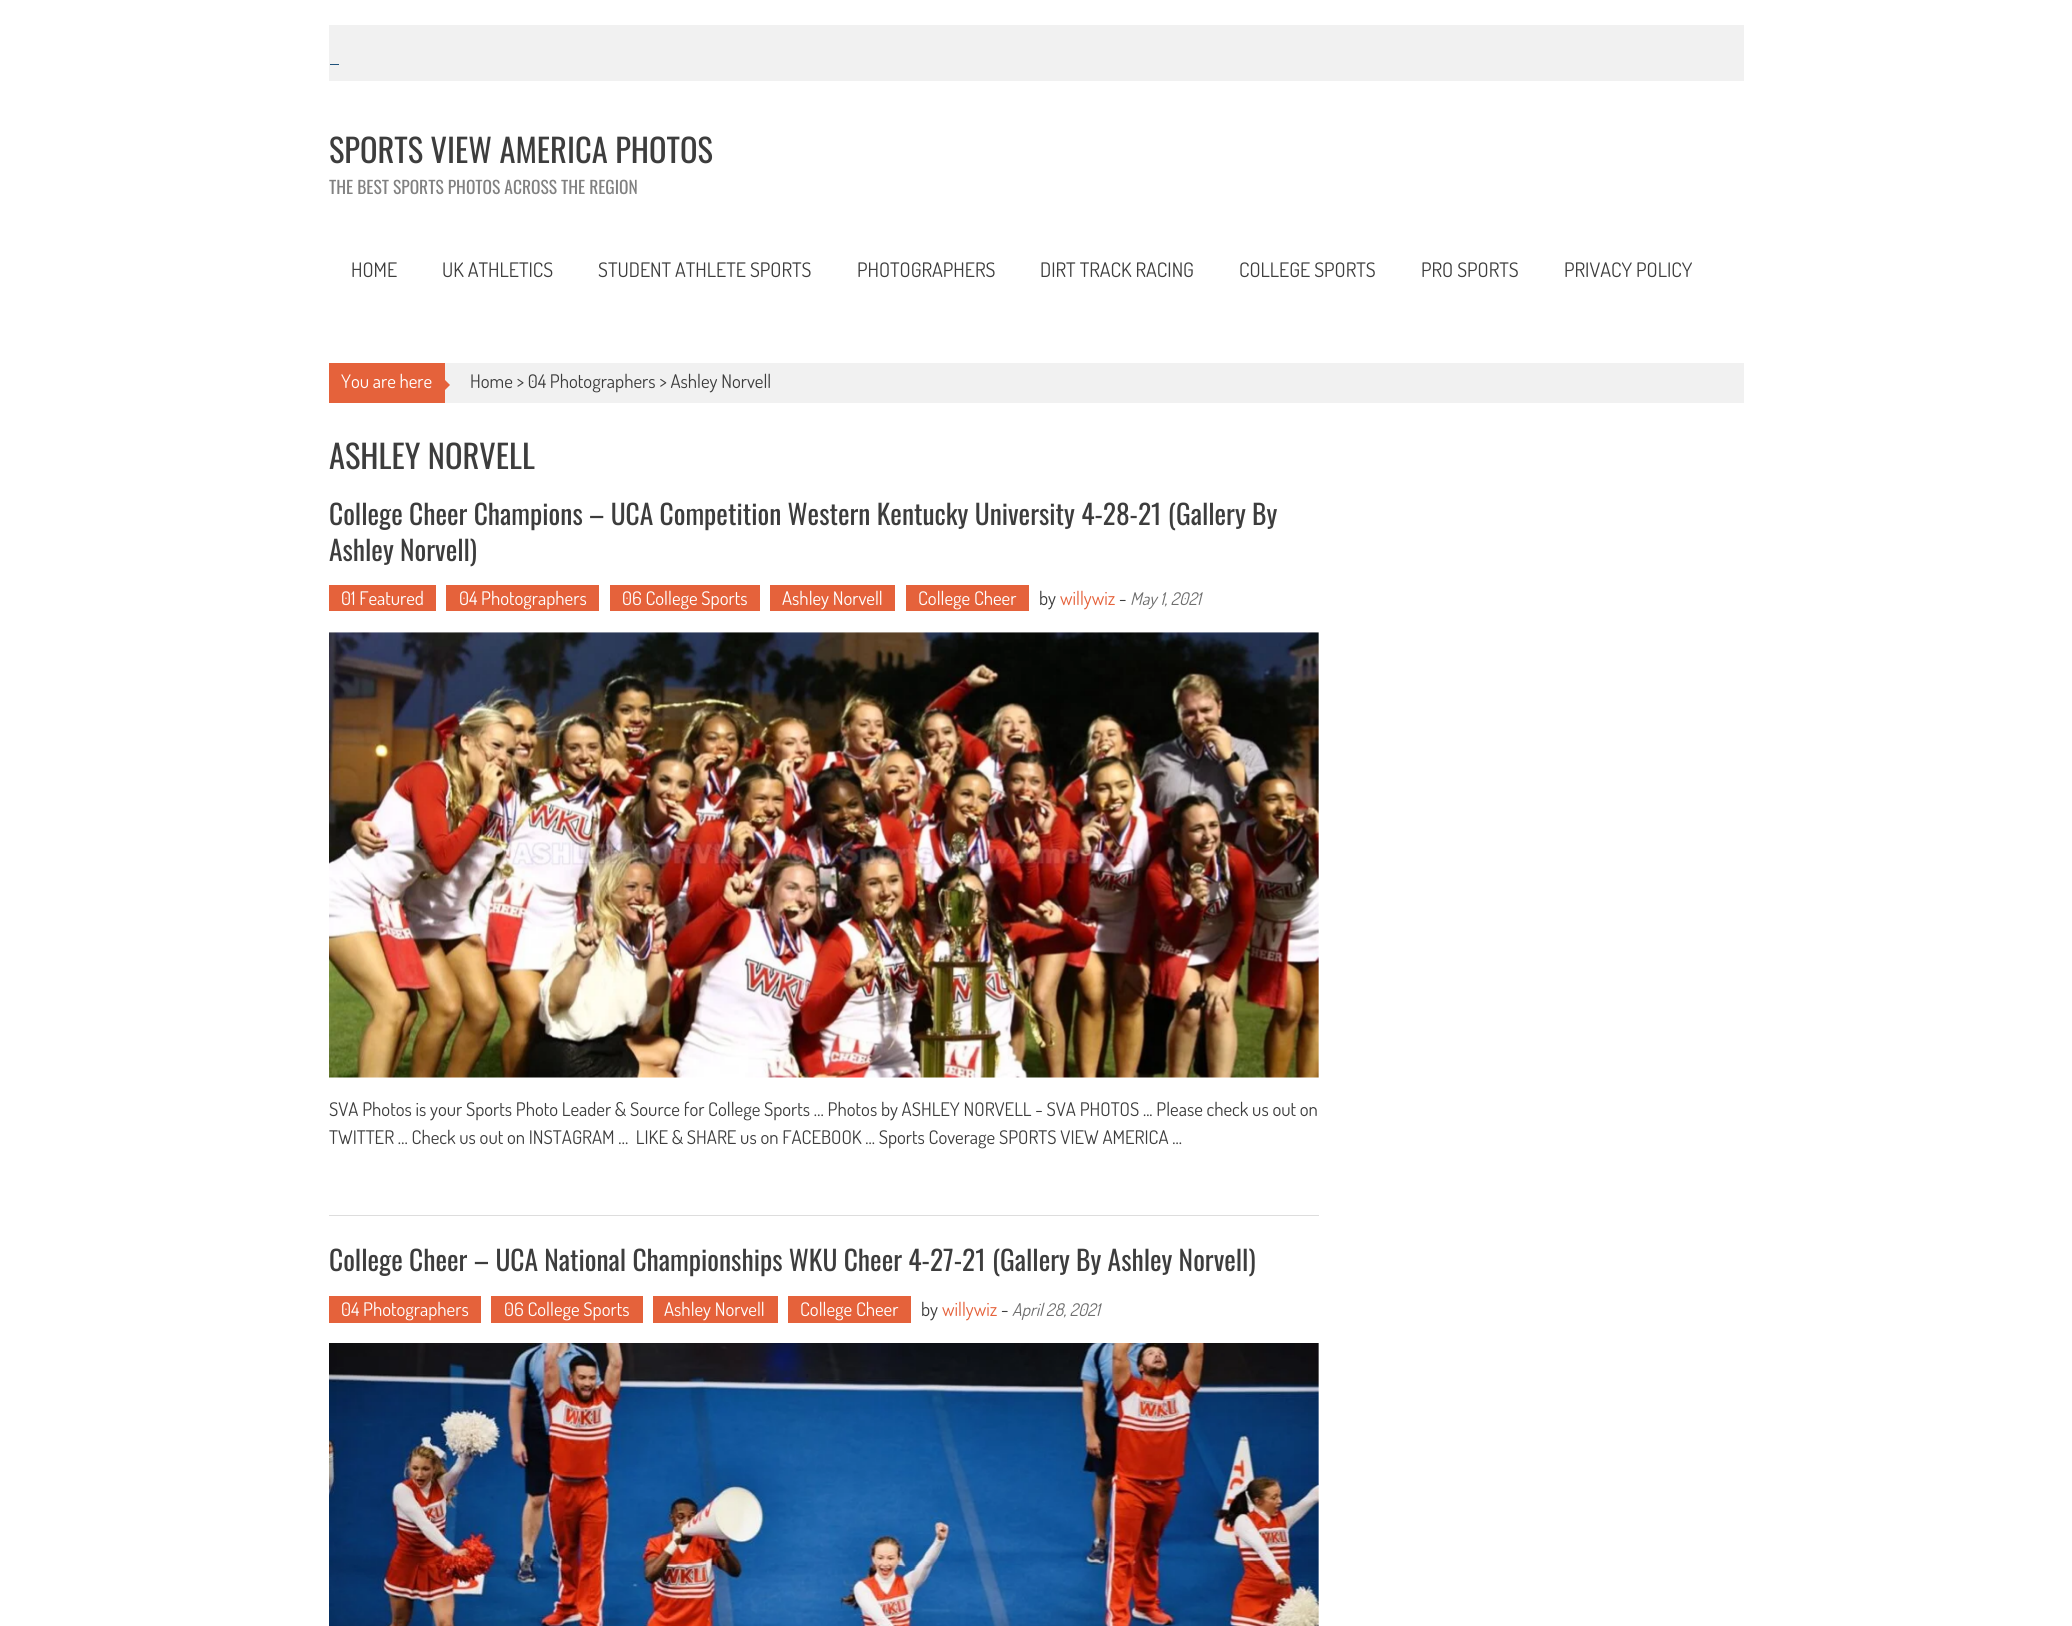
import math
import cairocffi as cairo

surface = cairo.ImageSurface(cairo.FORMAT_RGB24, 2072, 1626)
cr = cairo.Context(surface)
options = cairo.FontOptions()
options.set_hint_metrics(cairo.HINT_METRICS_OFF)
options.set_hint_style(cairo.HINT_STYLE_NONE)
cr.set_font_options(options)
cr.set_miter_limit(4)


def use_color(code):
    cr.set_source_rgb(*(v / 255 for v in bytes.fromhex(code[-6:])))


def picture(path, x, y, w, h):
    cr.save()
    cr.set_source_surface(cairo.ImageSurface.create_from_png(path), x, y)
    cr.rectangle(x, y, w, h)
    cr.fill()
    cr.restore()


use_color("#ffffff")
cr.paint()
use_color("#f1f1f1")
cr.rectangle(329, 25, 1415, 56)
cr.fill()
use_color("#1f527b")
cr.rectangle(330, 64, 9, 1)
cr.fill()
cr.select_font_face("Oswald")
cr.set_font_size(32.5)
use_color("#3d3d3d")
cr.move_to(329, 163)
cr.show_text("SPORTS VIEW AMERICA PHOTOS")
cr.set_font_size(17.5)
use_color("#818181")
cr.move_to(329, 194)
cr.show_text("THE BEST SPORTS PHOTOS ACROSS THE REGION")
cr.select_font_face("Dosis")
cr.set_font_size(20)
use_color("#3d3d3d")
cr.move_to(351, 277)
cr.show_text("HOME")
cr.move_to(442, 277)
cr.show_text("UK ATHLETICS")
cr.move_to(598, 277)
cr.show_text("STUDENT ATHLETE SPORTS")
cr.move_to(857, 277)
cr.show_text("PHOTOGRAPHERS")
cr.move_to(1040, 277)
cr.show_text("DIRT TRACK RACING")
cr.move_to(1239, 277)
cr.show_text("COLLEGE SPORTS")
cr.move_to(1421, 277)
cr.show_text("PRO SPORTS")
cr.move_to(1564, 277)
cr.show_text("PRIVACY POLICY")
use_color("#f1f1f1")
cr.rectangle(445, 363, 1299, 40)
cr.fill()
use_color("#e5623b")
cr.rectangle(329, 363, 116, 40)
cr.fill()
cr.set_font_size(18.75)
use_color("#ffffff")
cr.move_to(341, 388)
cr.show_text("You are here")
use_color("#e5623b")
cr.new_path()
cr.move_to(444, 391)
cr.line_to(444, 379)
cr.line_to(450, 385)
cr.close_path()
cr.fill()
use_color("#3d3d3d")
cr.move_to(470, 388)
cr.show_text("Home > 04 Photographers > Ashley Norvell")
cr.select_font_face("Oswald")
cr.set_font_size(32.5)
cr.move_to(329, 469)
cr.show_text("ASHLEY NORVELL")
use_color("#dddddd")
cr.rectangle(329, 1215, 990, 1)
cr.fill()
cr.set_font_size(27.5)
use_color("#3d3d3d")
cr.move_to(329, 525)
cr.show_text("College Cheer Champions – UCA Competition Western Kentucky University 4-28-21 (Gallery By")
cr.move_to(329, 561)
cr.show_text("Ashley Norvell)")
use_color("#e5623b")
cr.rectangle(329, 585, 107, 26)
cr.fill()
cr.select_font_face("Dosis")
cr.set_font_size(18.75)
use_color("#ffffff")
cr.move_to(341, 605)
cr.show_text("01 Featured")
use_color("#e5623b")
cr.rectangle(446, 585, 153, 26)
cr.fill()
use_color("#ffffff")
cr.move_to(459, 605)
cr.show_text("04 Photographers")
use_color("#e5623b")
cr.rectangle(610, 585, 150, 26)
cr.fill()
use_color("#ffffff")
cr.move_to(622, 605)
cr.show_text("06 College Sports")
use_color("#e5623b")
cr.rectangle(770, 585, 125, 26)
cr.fill()
use_color("#ffffff")
cr.move_to(782, 605)
cr.show_text("Ashley Norvell")
use_color("#e5623b")
cr.rectangle(906, 585, 123, 26)
cr.fill()
use_color("#ffffff")
cr.move_to(918, 605)
cr.show_text("College Cheer")
use_color("#3d3d3d")
cr.move_to(1039, 605)
cr.show_text("by")
use_color("#e5623b")
cr.move_to(1060, 605)
cr.show_text("willywiz")
use_color("#3d3d3d")
cr.move_to(1119, 605)
cr.show_text("-")
cr.select_font_face("Dosis", cairo.FONT_SLANT_ITALIC)
cr.set_font_size(17.5)
use_color("#6d6d6d")
cr.move_to(1130, 605)
cr.show_text("May 1, 2021")
picture("img1.png", 329, 632, 990, 446)
cr.select_font_face("Dosis")
cr.set_font_size(18.75)
use_color("#3d3d3d")
cr.move_to(329, 1116)
cr.show_text("SVA Photos is your Sports Photo Leader & Source for College Sports … Photos by ASHLEY NORVELL - SVA PHOTOS ... Please check us out on")
cr.move_to(329, 1144)
cr.show_text("TWITTER … Check us out on INSTAGRAM …  LIKE & SHARE us on FACEBOOK ... Sports Coverage SPORTS VIEW AMERICA ...")
cr.select_font_face("Oswald")
cr.set_font_size(27.5)
cr.move_to(329, 1271)
cr.show_text("College Cheer – UCA National Championships WKU Cheer 4-27-21 (Gallery By Ashley Norvell)")
use_color("#e5623b")
cr.rectangle(329, 1296, 152, 27)
cr.fill()
cr.select_font_face("Dosis")
cr.set_font_size(18.75)
use_color("#ffffff")
cr.move_to(341, 1316)
cr.show_text("04 Photographers")
use_color("#e5623b")
cr.rectangle(491, 1296, 152, 27)
cr.fill()
use_color("#ffffff")
cr.move_to(504, 1316)
cr.show_text("06 College Sports")
use_color("#e5623b")
cr.rectangle(653, 1296, 125, 27)
cr.fill()
use_color("#ffffff")
cr.move_to(664, 1316)
cr.show_text("Ashley Norvell")
use_color("#e5623b")
cr.rectangle(788, 1296, 123, 27)
cr.fill()
use_color("#ffffff")
cr.move_to(800, 1316)
cr.show_text("College Cheer")
use_color("#3d3d3d")
cr.move_to(921, 1316)
cr.show_text("by")
use_color("#e5623b")
cr.move_to(942, 1316)
cr.show_text("willywiz")
use_color("#3d3d3d")
cr.move_to(1001, 1316)
cr.show_text("-")
cr.select_font_face("Dosis", cairo.FONT_SLANT_ITALIC)
cr.set_font_size(17.5)
use_color("#6d6d6d")
cr.move_to(1012, 1316)
cr.show_text("April 28, 2021")
picture("img2.png", 329, 1343, 990, 283)
surface.write_to_png("result.png")
